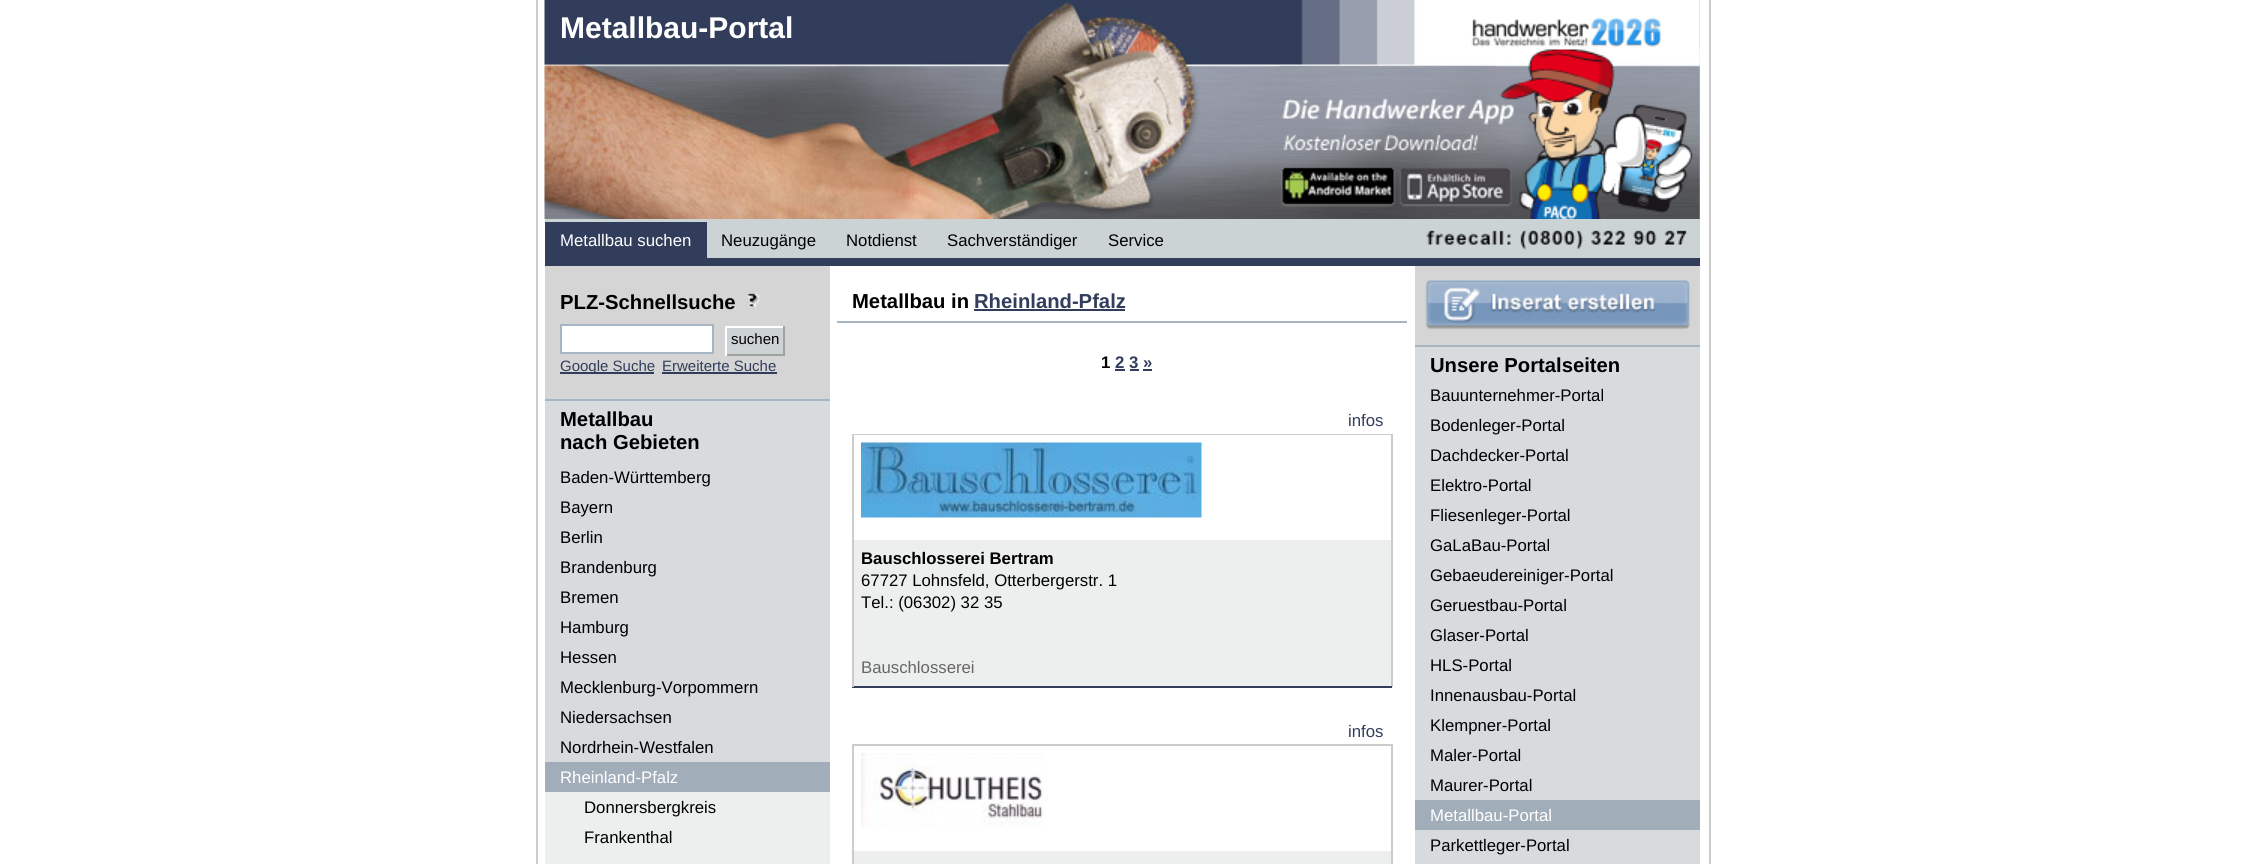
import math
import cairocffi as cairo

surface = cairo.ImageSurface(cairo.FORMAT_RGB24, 2245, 864)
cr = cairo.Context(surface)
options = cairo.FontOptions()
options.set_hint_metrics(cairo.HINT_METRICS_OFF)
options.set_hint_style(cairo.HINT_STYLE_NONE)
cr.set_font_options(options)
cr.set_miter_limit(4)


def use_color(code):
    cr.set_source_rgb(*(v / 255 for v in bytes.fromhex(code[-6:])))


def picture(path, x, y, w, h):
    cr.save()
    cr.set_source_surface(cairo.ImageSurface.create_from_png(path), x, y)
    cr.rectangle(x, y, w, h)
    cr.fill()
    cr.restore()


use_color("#ffffff")
cr.paint()
use_color("#cccccc")
cr.rectangle(1709, 0, 2, 864)
cr.fill()
cr.rectangle(536, 0, 2, 864)
cr.fill()
use_color("#ccd3d5")
cr.rectangle(545, 0, 1155, 258)
cr.fill()
use_color("#313d5b")
cr.rectangle(545, 258, 1155, 8)
cr.fill()
picture("img1.png", 544, 0, 1156, 219)
cr.select_font_face("Liberation Sans", cairo.FONT_SLANT_NORMAL, cairo.FONT_WEIGHT_BOLD)
cr.set_font_size(30)
use_color("#ffffff")
cr.move_to(560, 38)
cr.show_text("Metallbau-Portal")
picture("img2.png", 1471, 18, 190, 30)
picture("img3.png", 1279, 49, 421, 170)
use_color("#313d5b")
cr.rectangle(545, 222, 162, 36)
cr.fill()
cr.select_font_face("Liberation Sans")
cr.set_font_size(16.75)
use_color("#ffffff")
cr.move_to(560, 246)
cr.show_text("Metallbau suchen")
use_color("#000000")
cr.move_to(721, 246)
cr.show_text("Neuzugänge")
cr.move_to(846, 246)
cr.show_text("Notdienst")
cr.move_to(947, 246)
cr.show_text("Sachverständiger")
cr.move_to(1108, 246)
cr.show_text("Service")
picture("img4.png", 1426, 230, 261, 20)
use_color("#d5d5d5")
cr.rectangle(545, 266, 285, 133)
cr.fill()
use_color("#a7b4c1")
cr.rectangle(545, 399, 285, 2)
cr.fill()
cr.select_font_face("Liberation Sans", cairo.FONT_SLANT_NORMAL, cairo.FONT_WEIGHT_BOLD)
cr.set_font_size(20.25)
use_color("#000000")
cr.move_to(560, 309)
cr.show_text("PLZ-Schnellsuche")
picture("img5.png", 748, 293, 12, 15)
use_color("#ffffff")
cr.rectangle(561, 325, 152, 28)
cr.fill_preserve()
use_color("#a7b4c1")
cr.stroke()
use_color("#cdd2d5")
cr.rectangle(727, 328, 56, 26)
cr.fill()
use_color("#ffffff")
cr.rectangle(725, 326, 60, 2)
cr.fill()
use_color("#a1a1a1")
cr.rectangle(783, 326, 2, 30)
cr.fill()
cr.rectangle(725, 354, 60, 2)
cr.fill()
use_color("#ffffff")
cr.rectangle(725, 326, 2, 30)
cr.fill()
cr.select_font_face("Liberation Sans")
cr.set_font_size(15)
use_color("#000000")
cr.move_to(731, 344)
cr.show_text("suchen")
use_color("#313d5b")
cr.rectangle(560, 372, 94, 2)
cr.fill()
cr.move_to(560, 371)
cr.show_text("Google Suche")
cr.move_to(662, 371)
cr.show_text("Erweiterte Suche")
cr.rectangle(662, 372, 115, 2)
cr.fill()
use_color("#d7dbde")
cr.rectangle(545, 401, 285, 361)
cr.fill()
cr.select_font_face("Liberation Sans", cairo.FONT_SLANT_NORMAL, cairo.FONT_WEIGHT_BOLD)
cr.set_font_size(20.25)
use_color("#000000")
cr.move_to(560, 426)
cr.show_text("Metallbau")
cr.move_to(560, 449)
cr.show_text("nach Gebieten")
cr.select_font_face("Liberation Sans")
cr.set_font_size(16.75)
cr.move_to(560, 483)
cr.show_text("Baden-Württemberg")
cr.move_to(560, 513)
cr.show_text("Bayern")
cr.move_to(560, 543)
cr.show_text("Berlin")
cr.move_to(560, 573)
cr.show_text("Brandenburg")
cr.move_to(560, 603)
cr.show_text("Bremen")
cr.move_to(560, 633)
cr.show_text("Hamburg")
cr.move_to(560, 663)
cr.show_text("Hessen")
cr.move_to(560, 693)
cr.show_text("Mecklenburg-Vorpommern")
cr.move_to(560, 723)
cr.show_text("Niedersachsen")
cr.move_to(560, 753)
cr.show_text("Nordrhein-Westfalen")
use_color("#a1adb9")
cr.rectangle(545, 762, 285, 30)
cr.fill()
use_color("#ffffff")
cr.move_to(560, 783)
cr.show_text("Rheinland-Pfalz")
use_color("#ecefee")
cr.rectangle(545, 792, 285, 72)
cr.fill()
use_color("#000000")
cr.move_to(584, 813)
cr.show_text("Donnersbergkreis")
cr.move_to(584, 843)
cr.show_text("Frankenthal")
use_color("#a7b4c1")
cr.rectangle(837, 321, 570, 2)
cr.fill()
cr.select_font_face("Liberation Sans", cairo.FONT_SLANT_NORMAL, cairo.FONT_WEIGHT_BOLD)
cr.set_font_size(20.25)
use_color("#000000")
cr.move_to(852, 308)
cr.show_text("Metallbau in")
use_color("#313d5b")
cr.move_to(974, 308)
cr.show_text("Rheinland-Pfalz")
cr.rectangle(974, 309, 151, 2)
cr.fill()
cr.set_font_size(16.75)
use_color("#000000")
cr.move_to(1101, 368)
cr.show_text("1")
use_color("#313d5b")
cr.move_to(1115, 368)
cr.show_text("2 3 »")
cr.rectangle(1115, 369, 10, 2)
cr.fill()
cr.rectangle(1130, 369, 9, 2)
cr.fill()
cr.rectangle(1143, 369, 9, 2)
cr.fill()
cr.select_font_face("Liberation Sans")
cr.move_to(1348, 426)
cr.show_text("infos")
use_color("#cccccc")
cr.rectangle(852, 434, 540, 1)
cr.fill()
cr.rectangle(1391, 434, 2, 253)
cr.fill()
use_color("#313d5b")
cr.rectangle(852, 686, 540, 2)
cr.fill()
use_color("#cccccc")
cr.rectangle(852, 434, 2, 253)
cr.fill()
picture("img6.png", 861, 442, 341, 76)
use_color("#ecefee")
cr.rectangle(854, 540, 537, 146)
cr.fill()
cr.select_font_face("Liberation Sans", cairo.FONT_SLANT_NORMAL, cairo.FONT_WEIGHT_BOLD)
use_color("#000000")
cr.move_to(861, 564)
cr.show_text("Bauschlosserei Bertram")
cr.select_font_face("Liberation Sans")
cr.move_to(861, 586)
cr.show_text("67727 Lohnsfeld, Otterbergerstr. 1")
cr.move_to(861, 608)
cr.show_text("Tel.: (06302) 32 35")
use_color("#666666")
cr.move_to(861, 673)
cr.show_text("Bauschlosserei")
use_color("#313d5b")
cr.move_to(1348, 737)
cr.show_text("infos")
use_color("#cccccc")
cr.rectangle(852, 744, 540, 2)
cr.fill()
cr.rectangle(1391, 744, 2, 120)
cr.fill()
cr.rectangle(852, 744, 2, 120)
cr.fill()
picture("img7.png", 861, 753, 183, 75)
use_color("#ecefee")
cr.rectangle(854, 851, 537, 13)
cr.fill()
use_color("#d5d5d5")
cr.rectangle(1415, 266, 285, 79)
cr.fill()
use_color("#a7b4c1")
cr.rectangle(1415, 345, 285, 2)
cr.fill()
picture("img8.png", 1425, 280, 266, 50)
use_color("#d7dbde")
cr.rectangle(1415, 347, 285, 453)
cr.fill()
cr.select_font_face("Liberation Sans", cairo.FONT_SLANT_NORMAL, cairo.FONT_WEIGHT_BOLD)
cr.set_font_size(20.25)
use_color("#000000")
cr.move_to(1430, 372)
cr.show_text("Unsere Portalseiten")
cr.select_font_face("Liberation Sans")
cr.set_font_size(16.75)
cr.move_to(1430, 401)
cr.show_text("Bauunternehmer-Portal")
cr.move_to(1430, 431)
cr.show_text("Bodenleger-Portal")
cr.move_to(1430, 461)
cr.show_text("Dachdecker-Portal")
cr.move_to(1430, 491)
cr.show_text("Elektro-Portal")
cr.move_to(1430, 521)
cr.show_text("Fliesenleger-Portal")
cr.move_to(1430, 551)
cr.show_text("GaLaBau-Portal")
cr.move_to(1430, 581)
cr.show_text("Gebaeudereiniger-Portal")
cr.move_to(1430, 611)
cr.show_text("Geruestbau-Portal")
cr.move_to(1430, 641)
cr.show_text("Glaser-Portal")
cr.move_to(1430, 671)
cr.show_text("HLS-Portal")
cr.move_to(1430, 701)
cr.show_text("Innenausbau-Portal")
cr.move_to(1430, 731)
cr.show_text("Klempner-Portal")
cr.move_to(1430, 761)
cr.show_text("Maler-Portal")
cr.move_to(1430, 791)
cr.show_text("Maurer-Portal")
use_color("#a1adb9")
cr.rectangle(1415, 800, 285, 30)
cr.fill()
use_color("#ffffff")
cr.move_to(1430, 821)
cr.show_text("Metallbau-Portal")
use_color("#d7dbde")
cr.rectangle(1415, 830, 285, 34)
cr.fill()
use_color("#000000")
cr.move_to(1430, 851)
cr.show_text("Parkettleger-Portal")
surface.write_to_png("result.png")
